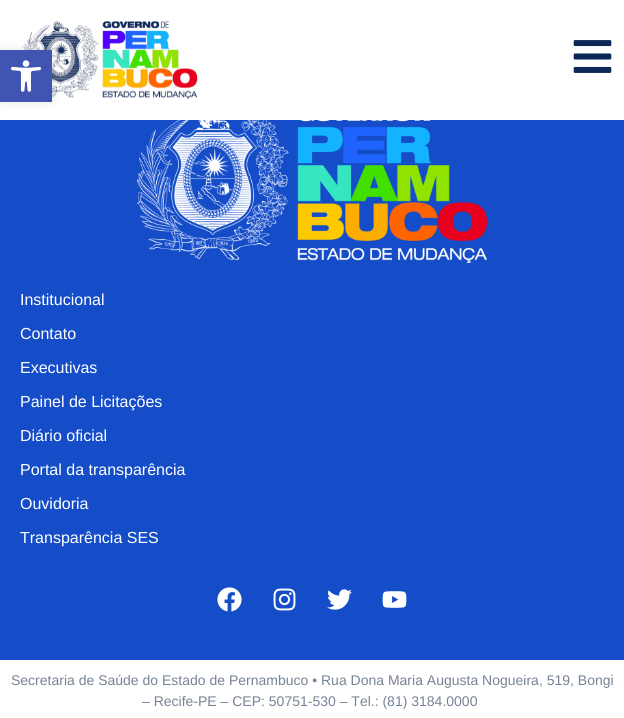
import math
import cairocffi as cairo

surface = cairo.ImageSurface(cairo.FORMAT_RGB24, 624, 718)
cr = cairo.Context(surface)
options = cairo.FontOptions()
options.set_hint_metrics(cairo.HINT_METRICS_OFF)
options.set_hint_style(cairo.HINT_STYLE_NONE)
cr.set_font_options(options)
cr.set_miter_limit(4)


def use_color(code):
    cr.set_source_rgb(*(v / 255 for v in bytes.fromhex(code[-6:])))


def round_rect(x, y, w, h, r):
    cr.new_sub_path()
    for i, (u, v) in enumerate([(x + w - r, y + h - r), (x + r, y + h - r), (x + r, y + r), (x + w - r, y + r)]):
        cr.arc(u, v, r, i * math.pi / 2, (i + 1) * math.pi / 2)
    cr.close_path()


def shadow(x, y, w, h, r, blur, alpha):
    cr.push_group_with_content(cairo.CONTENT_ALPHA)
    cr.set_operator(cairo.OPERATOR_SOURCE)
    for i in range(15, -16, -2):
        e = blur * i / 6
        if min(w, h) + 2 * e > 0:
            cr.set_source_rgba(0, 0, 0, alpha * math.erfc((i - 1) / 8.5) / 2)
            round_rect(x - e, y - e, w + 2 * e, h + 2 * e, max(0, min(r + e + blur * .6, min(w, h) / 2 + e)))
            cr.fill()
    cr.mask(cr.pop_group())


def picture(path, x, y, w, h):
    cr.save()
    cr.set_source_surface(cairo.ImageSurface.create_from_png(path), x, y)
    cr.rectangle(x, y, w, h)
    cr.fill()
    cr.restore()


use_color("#ffffff")
cr.paint()
picture("img1.png", 23, 21, 175, 79)
picture("img2.png", 573, 40, 39, 33)
use_color("#000000")
shadow(0, 50, 52, 52, 0, 5, 0.1)
use_color("#4054b2")
cr.rectangle(0, 50, 52, 52)
cr.fill()
picture("img3.png", 11, 60, 30, 32)
use_color("#154dc9")
cr.rectangle(0, 120, 624, 540)
cr.fill()
picture("img4.png", 137, 120, 350, 143)
cr.select_font_face("Liberation Sans")
cr.set_font_size(16)
use_color("#ffffff")
cr.move_to(20, 305)
cr.show_text("Institucional")
cr.move_to(20, 339)
cr.show_text("Contato")
cr.move_to(20, 373)
cr.show_text("Executivas")
cr.move_to(20, 407)
cr.show_text("Painel de Licitações")
cr.move_to(20, 441)
cr.show_text("Diário oficial")
cr.move_to(20, 475)
cr.show_text("Portal da transparência")
cr.move_to(20, 509)
cr.show_text("Ouvidoria")
cr.move_to(20, 543)
cr.show_text("Transparência SES")
picture("img5.png", 217, 587, 25, 25)
picture("img6.png", 273, 588, 23, 23)
picture("img7.png", 327, 589, 25, 21)
picture("img8.png", 382, 591, 25, 17)
cr.set_font_size(14)
use_color("#778395")
cr.move_to(11, 685)
cr.show_text("Secretaria de Saúde do Estado de Pernambuco • Rua Dona Maria Augusta Nogueira, 519, Bongi")
cr.move_to(142, 706)
cr.show_text("– Recife-PE – CEP: 50751-530 – Tel.: (81) 3184.0000")
surface.write_to_png("result.png")
